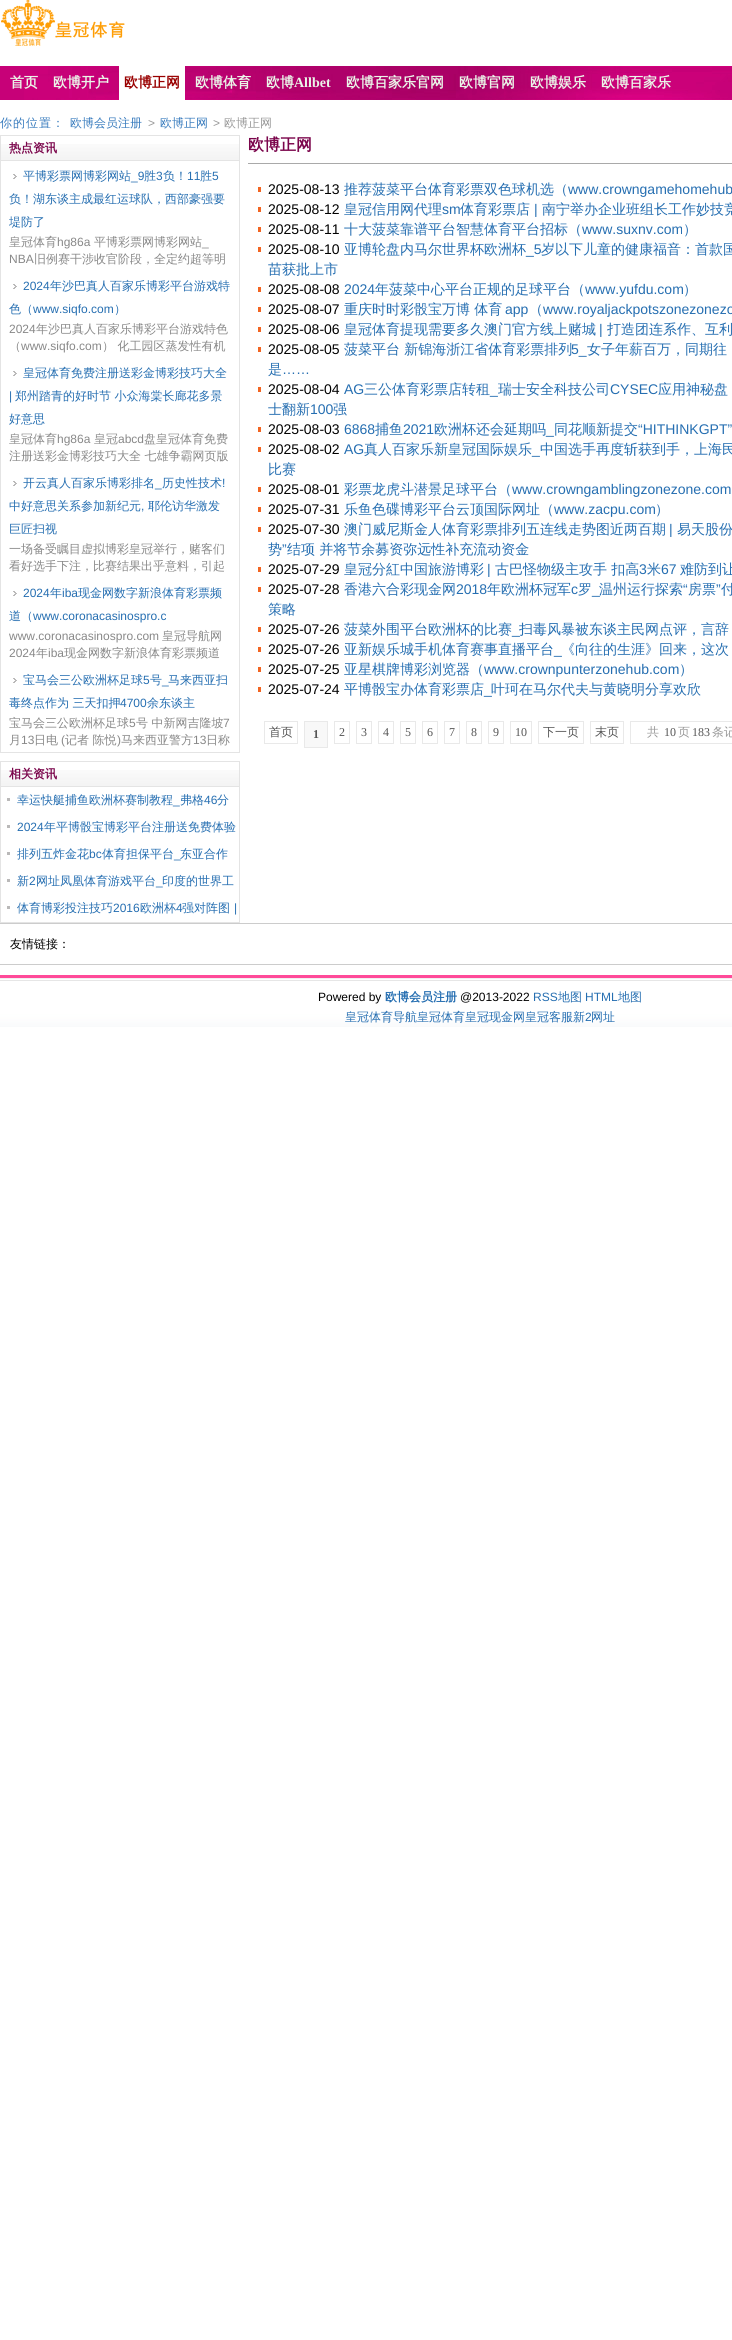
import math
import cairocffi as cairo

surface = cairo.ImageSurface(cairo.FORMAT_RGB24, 732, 2340)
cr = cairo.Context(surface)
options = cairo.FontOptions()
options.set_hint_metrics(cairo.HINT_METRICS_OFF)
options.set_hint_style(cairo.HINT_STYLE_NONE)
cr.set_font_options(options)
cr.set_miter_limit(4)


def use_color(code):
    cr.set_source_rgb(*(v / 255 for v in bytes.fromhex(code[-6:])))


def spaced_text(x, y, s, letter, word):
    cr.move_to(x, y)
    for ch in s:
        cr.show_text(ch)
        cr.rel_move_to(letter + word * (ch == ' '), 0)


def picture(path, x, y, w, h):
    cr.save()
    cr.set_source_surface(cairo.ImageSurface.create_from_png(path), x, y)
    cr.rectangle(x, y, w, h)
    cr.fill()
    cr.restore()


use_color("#ffffff")
cr.paint()
picture("img1.png", 1, 0, 124, 46)
picture("img2.png", 0, 66, 732, 34)
cr.select_font_face("WenQuanYi Zen Hei", cairo.FONT_SLANT_NORMAL, cairo.FONT_WEIGHT_BOLD)
cr.set_font_size(14)
use_color("#ebf5e9")
cr.move_to(10, 87)
cr.show_text("首页")
cr.move_to(53, 87)
cr.show_text("欧博开户")
use_color("#ffffff")
cr.rectangle(119, 66, 66, 34)
cr.fill()
use_color("#990000")
cr.move_to(124, 87)
cr.show_text("欧博正网")
use_color("#ebf5e9")
cr.move_to(195, 87)
cr.show_text("欧博体育")
cr.move_to(266, 87)
cr.show_text("欧博")
cr.select_font_face("Liberation Serif", cairo.FONT_SLANT_NORMAL, cairo.FONT_WEIGHT_BOLD)
cr.move_to(294, 87)
cr.show_text("Allbet")
cr.select_font_face("WenQuanYi Zen Hei", cairo.FONT_SLANT_NORMAL, cairo.FONT_WEIGHT_BOLD)
cr.move_to(346, 87)
cr.show_text("欧博百家乐官网")
cr.move_to(459, 87)
cr.show_text("欧博官网")
cr.move_to(530, 87)
cr.show_text("欧博娱乐")
cr.move_to(601, 87)
cr.show_text("欧博百家乐")
cr.select_font_face("WenQuanYi Zen Hei Medium")
cr.set_font_size(12)
use_color("#397cbe")
spaced_text(0, 127, "你的位置：", 1, 0)
cr.move_to(70, 127)
cr.show_text("欧博会员注册")
cr.select_font_face("Liberation Sans")
use_color("#999999")
cr.move_to(148, 127)
cr.show_text(">")
cr.select_font_face("WenQuanYi Zen Hei Medium")
use_color("#397cbe")
cr.move_to(160, 127)
cr.show_text("欧博正网")
cr.select_font_face("Liberation Sans")
use_color("#999999")
cr.move_to(213, 127)
cr.show_text(">")
cr.select_font_face("WenQuanYi Zen Hei Medium")
cr.move_to(224, 127)
cr.show_text("欧博正网")
picture("img3.png", 1, 144, 238, 16)
cr.rectangle(0.5, 135.5, 239, 25)
use_color("#e4e4e4")
cr.set_line_width(1)
cr.stroke()
cr.select_font_face("WenQuanYi Zen Hei", cairo.FONT_SLANT_NORMAL, cairo.FONT_WEIGHT_BOLD)
use_color("#7b064c")
cr.move_to(9, 152)
cr.show_text("热点资讯")
use_color("#e4e4e4")
cr.rectangle(239, 161, 1, 592)
cr.fill()
cr.rectangle(0, 752, 240, 1)
cr.fill()
cr.rectangle(0, 161, 1, 592)
cr.fill()
picture("img4.png", 13, 174, 4, 5)
cr.select_font_face("WenQuanYi Zen Hei Medium")
use_color("#256eb1")
cr.move_to(23, 180)
cr.show_text("平博彩票网博彩网站")
cr.select_font_face("Liberation Sans")
cr.move_to(131, 180)
cr.show_text("_9")
cr.select_font_face("WenQuanYi Zen Hei Medium")
cr.move_to(144, 180)
cr.show_text("胜")
cr.select_font_face("Liberation Sans")
cr.move_to(156, 180)
cr.show_text("3")
cr.select_font_face("WenQuanYi Zen Hei Medium")
cr.move_to(163, 180)
cr.show_text("负！")
cr.select_font_face("Liberation Sans")
cr.move_to(187, 180)
cr.show_text("11")
cr.select_font_face("WenQuanYi Zen Hei Medium")
cr.move_to(200, 180)
cr.show_text("胜")
cr.select_font_face("Liberation Sans")
cr.move_to(212, 180)
cr.show_text("5")
cr.select_font_face("WenQuanYi Zen Hei Medium")
cr.move_to(9, 203)
cr.show_text("负！湖东谈主成最红运球队，西部豪强要")
cr.move_to(9, 226)
cr.show_text("堤防了")
use_color("#888888")
cr.move_to(9, 246)
cr.show_text("皇冠体育")
cr.select_font_face("Liberation Sans")
cr.move_to(57, 246)
cr.show_text("hg86a")
cr.select_font_face("WenQuanYi Zen Hei Medium")
cr.move_to(94, 246)
cr.show_text("平博彩票网博彩网站")
cr.select_font_face("Liberation Sans")
cr.move_to(202, 246)
cr.show_text("_")
cr.move_to(9, 263)
cr.show_text("NBA")
cr.select_font_face("WenQuanYi Zen Hei Medium")
cr.move_to(34, 263)
cr.show_text("旧例赛干涉收官阶段，全定约超等明")
picture("img4.png", 13, 284, 4, 5)
cr.select_font_face("Liberation Sans")
use_color("#256eb1")
cr.move_to(23, 290)
cr.show_text("2024")
cr.select_font_face("WenQuanYi Zen Hei Medium")
cr.move_to(50, 290)
cr.show_text("年沙巴真人百家乐博彩平台游戏特")
cr.move_to(9, 313)
cr.show_text("色（")
cr.select_font_face("Liberation Sans")
cr.move_to(33, 313)
cr.show_text("www.siqfo.com")
cr.select_font_face("WenQuanYi Zen Hei Medium")
cr.move_to(114, 313)
cr.show_text("）")
cr.select_font_face("Liberation Sans")
use_color("#888888")
cr.move_to(9, 333)
cr.show_text("2024")
cr.select_font_face("WenQuanYi Zen Hei Medium")
cr.move_to(36, 333)
cr.show_text("年沙巴真人百家乐博彩平台游戏特色")
cr.move_to(9, 350)
cr.show_text("（")
cr.select_font_face("Liberation Sans")
cr.move_to(21, 350)
cr.show_text("www.siqfo.com")
cr.select_font_face("WenQuanYi Zen Hei Medium")
cr.move_to(102, 350)
cr.show_text("） 化工园区蒸发性有机")
picture("img4.png", 13, 371, 4, 5)
use_color("#256eb1")
cr.move_to(23, 377)
cr.show_text("皇冠体育免费注册送彩金博彩技巧大全")
cr.select_font_face("Liberation Sans")
cr.move_to(9, 400)
cr.show_text("|")
cr.select_font_face("WenQuanYi Zen Hei Medium")
cr.move_to(15, 400)
cr.show_text("郑州踏青的好时节 小众海棠长廊花多景")
cr.move_to(9, 423)
cr.show_text("好意思")
use_color("#888888")
cr.move_to(9, 443)
cr.show_text("皇冠体育")
cr.select_font_face("Liberation Sans")
cr.move_to(57, 443)
cr.show_text("hg86a")
cr.select_font_face("WenQuanYi Zen Hei Medium")
cr.move_to(94, 443)
cr.show_text("皇冠")
cr.select_font_face("Liberation Sans")
cr.move_to(118, 443)
cr.show_text("abcd")
cr.select_font_face("WenQuanYi Zen Hei Medium")
cr.move_to(144, 443)
cr.show_text("盘皇冠体育免费")
cr.move_to(9, 460)
cr.show_text("注册送彩金博彩技巧大全 七雄争霸网页版")
picture("img4.png", 13, 481, 4, 5)
use_color("#256eb1")
cr.move_to(23, 487)
cr.show_text("开云真人百家乐博彩排名")
cr.move_to(162, 487)
cr.show_text("历史性技术")
cr.select_font_face("Liberation Sans")
cr.move_to(222, 487)
cr.show_text("!")
cr.move_to(155, 487)
cr.show_text("_")
cr.select_font_face("WenQuanYi Zen Hei Medium")
cr.move_to(9, 510)
cr.show_text("中好意思关系参加新纪元")
cr.select_font_face("Liberation Sans")
cr.move_to(141, 510)
cr.show_text(",")
cr.select_font_face("WenQuanYi Zen Hei Medium")
cr.move_to(148, 510)
cr.show_text("耶伦访华激发")
cr.move_to(9, 533)
cr.show_text("巨匠扫视")
use_color("#888888")
cr.move_to(9, 553)
cr.show_text("一场备受瞩目虚拟博彩皇冠举行，赌客们")
cr.move_to(9, 570)
cr.show_text("看好选手下注，比赛结果出乎意料，引起")
picture("img4.png", 13, 591, 4, 5)
cr.select_font_face("Liberation Sans")
use_color("#256eb1")
cr.move_to(23, 597)
cr.show_text("2024")
cr.select_font_face("WenQuanYi Zen Hei Medium")
cr.move_to(50, 597)
cr.show_text("年")
cr.select_font_face("Liberation Sans")
cr.move_to(62, 597)
cr.show_text("iba")
cr.select_font_face("WenQuanYi Zen Hei Medium")
cr.move_to(78, 597)
cr.show_text("现金网数字新浪体育彩票频")
cr.move_to(9, 620)
cr.show_text("道（")
cr.select_font_face("Liberation Sans")
cr.move_to(33, 620)
cr.show_text("www.coronacasinospro.c")
use_color("#888888")
cr.move_to(9, 640)
cr.show_text("www.coronacasinospro.com")
cr.select_font_face("WenQuanYi Zen Hei Medium")
cr.move_to(162, 640)
cr.show_text("皇冠导航网")
cr.select_font_face("Liberation Sans")
cr.move_to(9, 657)
cr.show_text("2024")
cr.select_font_face("WenQuanYi Zen Hei Medium")
cr.move_to(36, 657)
cr.show_text("年")
cr.select_font_face("Liberation Sans")
cr.move_to(48, 657)
cr.show_text("iba")
cr.select_font_face("WenQuanYi Zen Hei Medium")
cr.move_to(64, 657)
cr.show_text("现金网数字新浪体育彩票频道")
picture("img4.png", 13, 678, 4, 5)
use_color("#256eb1")
cr.move_to(23, 684)
cr.show_text("宝马会三公欧洲杯足球")
cr.select_font_face("Liberation Sans")
cr.move_to(143, 684)
cr.show_text("5")
cr.select_font_face("WenQuanYi Zen Hei Medium")
cr.move_to(150, 684)
cr.show_text("号")
cr.select_font_face("Liberation Sans")
cr.move_to(162, 684)
cr.show_text("_")
cr.select_font_face("WenQuanYi Zen Hei Medium")
cr.move_to(168, 684)
cr.show_text("马来西亚扫")
cr.move_to(9, 707)
cr.show_text("毒终点作为 三天扣押")
cr.select_font_face("Liberation Sans")
cr.move_to(120, 707)
cr.show_text("4700")
cr.select_font_face("WenQuanYi Zen Hei Medium")
cr.move_to(147, 707)
cr.show_text("余东谈主")
use_color("#888888")
cr.move_to(9, 727)
cr.show_text("宝马会三公欧洲杯足球")
cr.select_font_face("Liberation Sans")
cr.move_to(129, 727)
cr.show_text("5")
cr.select_font_face("WenQuanYi Zen Hei Medium")
cr.move_to(136, 727)
cr.show_text("号 中新网吉隆坡")
cr.select_font_face("Liberation Sans")
cr.move_to(223, 727)
cr.show_text("7")
cr.select_font_face("WenQuanYi Zen Hei Medium")
cr.move_to(9, 744)
cr.show_text("月")
cr.select_font_face("Liberation Sans")
cr.move_to(21, 744)
cr.show_text("13")
cr.select_font_face("WenQuanYi Zen Hei Medium")
cr.move_to(34, 744)
cr.show_text("日电")
cr.select_font_face("Liberation Sans")
cr.move_to(61, 744)
cr.show_text("(")
cr.select_font_face("WenQuanYi Zen Hei Medium")
cr.move_to(65, 744)
cr.show_text("记者 陈悦")
cr.select_font_face("Liberation Sans")
cr.move_to(117, 744)
cr.show_text(")")
cr.select_font_face("WenQuanYi Zen Hei Medium")
cr.move_to(121, 744)
cr.show_text("马来西亚警方")
cr.select_font_face("Liberation Sans")
cr.move_to(193, 744)
cr.show_text("13")
cr.select_font_face("WenQuanYi Zen Hei Medium")
cr.move_to(206, 744)
cr.show_text("日称")
picture("img3.png", 1, 770, 238, 16)
cr.rectangle(0.5, 761.5, 239, 25)
use_color("#e4e4e4")
cr.stroke()
cr.select_font_face("WenQuanYi Zen Hei", cairo.FONT_SLANT_NORMAL, cairo.FONT_WEIGHT_BOLD)
use_color("#7b064c")
cr.move_to(9, 778)
cr.show_text("相关资讯")
use_color("#e4e4e4")
cr.rectangle(239, 787, 1, 136)
cr.fill()
cr.rectangle(0, 922, 240, 1)
cr.fill()
cr.rectangle(0, 787, 1, 136)
cr.fill()
use_color("#bab9b9")
cr.rectangle(7, 798, 3, 3)
cr.fill()
cr.select_font_face("WenQuanYi Zen Hei Medium")
use_color("#256eb1")
cr.move_to(17, 804)
cr.show_text("幸运快艇捕鱼欧洲杯赛制教程")
cr.move_to(180, 804)
cr.show_text("弗格")
cr.select_font_face("Liberation Sans")
cr.move_to(204, 804)
cr.show_text("46")
cr.select_font_face("WenQuanYi Zen Hei Medium")
cr.move_to(217, 804)
cr.show_text("分")
cr.select_font_face("Liberation Sans")
cr.move_to(173, 804)
cr.show_text("_")
use_color("#bab9b9")
cr.rectangle(7, 825, 3, 3)
cr.fill()
use_color("#256eb1")
cr.move_to(17, 831)
cr.show_text("2024")
cr.select_font_face("WenQuanYi Zen Hei Medium")
cr.move_to(44, 831)
cr.show_text("年平博骰宝博彩平台注册送免费体验")
use_color("#bab9b9")
cr.rectangle(7, 852, 3, 3)
cr.fill()
use_color("#256eb1")
cr.move_to(17, 858)
cr.show_text("排列五炸金花")
cr.select_font_face("Liberation Sans")
cr.move_to(89, 858)
cr.show_text("bc")
cr.select_font_face("WenQuanYi Zen Hei Medium")
cr.move_to(102, 858)
cr.show_text("体育担保平台")
cr.select_font_face("Liberation Sans")
cr.move_to(174, 858)
cr.show_text("_")
cr.select_font_face("WenQuanYi Zen Hei Medium")
cr.move_to(180, 858)
cr.show_text("东亚合作")
use_color("#bab9b9")
cr.rectangle(7, 879, 3, 3)
cr.fill()
use_color("#256eb1")
cr.move_to(17, 885)
cr.show_text("新")
cr.select_font_face("Liberation Sans")
cr.move_to(29, 885)
cr.show_text("2")
cr.select_font_face("WenQuanYi Zen Hei Medium")
cr.move_to(36, 885)
cr.show_text("网址凤凰体育游戏平台")
cr.move_to(162, 885)
cr.show_text("印度的世界工")
cr.select_font_face("Liberation Sans")
cr.move_to(156, 885)
cr.show_text("_")
use_color("#bab9b9")
cr.rectangle(7, 906, 3, 3)
cr.fill()
cr.select_font_face("WenQuanYi Zen Hei Medium")
use_color("#256eb1")
cr.move_to(17, 912)
cr.show_text("体育博彩投注技巧")
cr.select_font_face("Liberation Sans")
cr.move_to(113, 912)
cr.show_text("2016")
cr.select_font_face("WenQuanYi Zen Hei Medium")
cr.move_to(140, 912)
cr.show_text("欧洲杯")
cr.select_font_face("Liberation Sans")
cr.move_to(176, 912)
cr.show_text("4")
cr.select_font_face("WenQuanYi Zen Hei Medium")
cr.move_to(182, 912)
cr.show_text("强对阵图")
cr.select_font_face("Liberation Sans")
cr.move_to(234, 912)
cr.show_text("|")
use_color("#a9a9a9")
cr.rectangle(248, 163, 484, 1)
cr.fill()
cr.select_font_face("WenQuanYi Zen Hei", cairo.FONT_SLANT_NORMAL, cairo.FONT_WEIGHT_BOLD)
cr.set_font_size(16)
use_color("#7b064c")
cr.move_to(248, 150)
cr.show_text("欧博正网")
use_color("#f26521")
cr.rectangle(258, 187, 3, 5)
cr.fill()
cr.select_font_face("Liberation Sans")
cr.set_font_size(14)
use_color("#000000")
cr.move_to(268, 194)
cr.show_text("2025-08-13")
cr.select_font_face("WenQuanYi Zen Hei Medium")
use_color("#256eb1")
cr.move_to(344, 194)
cr.show_text("推荐菠菜平台体育彩票双色球机选（")
cr.select_font_face("Liberation Sans")
cr.move_to(568, 194)
cr.show_text("www.crowngamehomehub")
use_color("#f26521")
cr.rectangle(258, 207, 3, 5)
cr.fill()
use_color("#000000")
cr.move_to(268, 214)
cr.show_text("2025-08-12")
cr.select_font_face("WenQuanYi Zen Hei Medium")
use_color("#256eb1")
cr.move_to(344, 214)
cr.show_text("皇冠信用网代理")
cr.select_font_face("Liberation Sans")
cr.move_to(442, 214)
cr.show_text("sm")
cr.select_font_face("WenQuanYi Zen Hei Medium")
cr.move_to(460, 214)
cr.show_text("体育彩票店")
cr.select_font_face("Liberation Sans")
cr.move_to(534, 214)
cr.show_text("|")
cr.select_font_face("WenQuanYi Zen Hei Medium")
cr.move_to(542, 214)
cr.show_text("南宁举办企业班组长工作妙技竞")
use_color("#f26521")
cr.rectangle(258, 227, 3, 5)
cr.fill()
cr.select_font_face("Liberation Sans")
use_color("#000000")
cr.move_to(268, 234)
cr.show_text("2025-08-11")
cr.select_font_face("WenQuanYi Zen Hei Medium")
use_color("#256eb1")
cr.move_to(344, 234)
cr.show_text("十大菠菜靠谱平台智慧体育平台招标（")
cr.select_font_face("Liberation Sans")
cr.move_to(582, 234)
cr.show_text("www.suxnv.com")
cr.select_font_face("WenQuanYi Zen Hei Medium")
cr.move_to(683, 234)
cr.show_text("）")
use_color("#f26521")
cr.rectangle(258, 247, 3, 5)
cr.fill()
cr.select_font_face("Liberation Sans")
use_color("#000000")
cr.move_to(268, 254)
cr.show_text("2025-08-10")
cr.select_font_face("WenQuanYi Zen Hei Medium")
use_color("#256eb1")
cr.move_to(344, 254)
cr.show_text("亚博轮盘内马尔世界杯欧洲杯")
cr.select_font_face("Liberation Sans")
cr.move_to(526, 254)
cr.show_text("_5")
cr.select_font_face("WenQuanYi Zen Hei Medium")
cr.move_to(541, 254)
cr.show_text("岁以下儿童的健康福音：首款国")
cr.move_to(268, 274)
cr.show_text("苗获批上市")
use_color("#f26521")
cr.rectangle(258, 287, 3, 5)
cr.fill()
cr.select_font_face("Liberation Sans")
use_color("#000000")
cr.move_to(268, 294)
cr.show_text("2025-08-08")
use_color("#256eb1")
cr.move_to(344, 294)
cr.show_text("2024")
cr.select_font_face("WenQuanYi Zen Hei Medium")
cr.move_to(375, 294)
cr.show_text("年菠菜中心平台正规的足球平台（")
cr.select_font_face("Liberation Sans")
cr.move_to(585, 294)
cr.show_text("www.yufdu.com")
cr.select_font_face("WenQuanYi Zen Hei Medium")
cr.move_to(683, 294)
cr.show_text("）")
use_color("#f26521")
cr.rectangle(258, 307, 3, 5)
cr.fill()
cr.select_font_face("Liberation Sans")
use_color("#000000")
cr.move_to(268, 314)
cr.show_text("2025-08-07")
cr.select_font_face("WenQuanYi Zen Hei Medium")
use_color("#256eb1")
cr.move_to(344, 314)
cr.show_text("重庆时时彩骰宝万博 体育")
cr.select_font_face("Liberation Sans")
cr.move_to(505, 314)
cr.show_text("app")
cr.select_font_face("WenQuanYi Zen Hei Medium")
cr.move_to(529, 314)
cr.show_text("（")
cr.select_font_face("Liberation Sans")
cr.move_to(543, 314)
cr.show_text("www.royaljackpotszonezonezo")
use_color("#f26521")
cr.rectangle(258, 327, 3, 5)
cr.fill()
use_color("#000000")
cr.move_to(268, 334)
cr.show_text("2025-08-06")
cr.select_font_face("WenQuanYi Zen Hei Medium")
use_color("#256eb1")
cr.move_to(344, 334)
cr.show_text("皇冠体育提现需要多久澳门官方线上赌城")
cr.select_font_face("Liberation Sans")
cr.move_to(599, 334)
cr.show_text("|")
cr.select_font_face("WenQuanYi Zen Hei Medium")
cr.move_to(607, 334)
cr.show_text("打造团连系作、互利")
use_color("#f26521")
cr.rectangle(258, 347, 3, 5)
cr.fill()
cr.select_font_face("Liberation Sans")
use_color("#000000")
cr.move_to(268, 354)
cr.show_text("2025-08-05")
cr.select_font_face("WenQuanYi Zen Hei Medium")
use_color("#256eb1")
cr.move_to(344, 354)
cr.show_text("菠菜平台 新锦海浙江省体育彩票排列")
cr.select_font_face("Liberation Sans")
cr.move_to(571, 354)
cr.show_text("5_")
cr.select_font_face("WenQuanYi Zen Hei Medium")
cr.move_to(587, 354)
cr.show_text("女子年薪百万，同期往")
cr.move_to(268, 374)
cr.show_text("是")
cr.select_font_face("Liberation Sans")
cr.move_to(282, 374)
cr.show_text("……")
use_color("#f26521")
cr.rectangle(258, 387, 3, 5)
cr.fill()
use_color("#000000")
cr.move_to(268, 394)
cr.show_text("2025-08-04")
use_color("#256eb1")
cr.move_to(344, 394)
cr.show_text("AG")
cr.select_font_face("WenQuanYi Zen Hei Medium")
cr.move_to(364, 394)
cr.show_text("三公体育彩票店转租")
cr.select_font_face("Liberation Sans")
cr.move_to(490, 394)
cr.show_text("_")
cr.select_font_face("WenQuanYi Zen Hei Medium")
cr.move_to(498, 394)
cr.show_text("瑞士安全科技公司")
cr.select_font_face("Liberation Sans")
cr.move_to(610, 394)
cr.show_text("CYSEC")
cr.select_font_face("WenQuanYi Zen Hei Medium")
cr.move_to(658, 394)
cr.show_text("应用神秘盘")
cr.move_to(268, 414)
cr.show_text("士翻新")
cr.select_font_face("Liberation Sans")
cr.move_to(310, 414)
cr.show_text("100")
cr.select_font_face("WenQuanYi Zen Hei Medium")
cr.move_to(333, 414)
cr.show_text("强")
use_color("#f26521")
cr.rectangle(258, 427, 3, 5)
cr.fill()
cr.select_font_face("Liberation Sans")
use_color("#000000")
cr.move_to(268, 434)
cr.show_text("2025-08-03")
use_color("#256eb1")
cr.move_to(344, 434)
cr.show_text("6868")
cr.select_font_face("WenQuanYi Zen Hei Medium")
cr.move_to(375, 434)
cr.show_text("捕鱼")
cr.select_font_face("Liberation Sans")
cr.move_to(403, 434)
cr.show_text("2021")
cr.select_font_face("WenQuanYi Zen Hei Medium")
cr.move_to(434, 434)
cr.show_text("欧洲杯还会延期吗")
cr.move_to(554, 434)
cr.show_text("同花顺新提交")
cr.select_font_face("Liberation Sans")
cr.move_to(638, 434)
cr.show_text("“HITHINKGPT”")
cr.move_to(546, 434)
cr.show_text("_")
use_color("#f26521")
cr.rectangle(258, 447, 3, 5)
cr.fill()
use_color("#000000")
cr.move_to(268, 454)
cr.show_text("2025-08-02")
use_color("#256eb1")
cr.move_to(344, 454)
cr.show_text("AG")
cr.select_font_face("WenQuanYi Zen Hei Medium")
cr.move_to(364, 454)
cr.show_text("真人百家乐新皇冠国际娱乐")
cr.move_to(540, 454)
cr.show_text("中国选手再度斩获到手，上海民")
cr.select_font_face("Liberation Sans")
cr.move_to(532, 454)
cr.show_text("_")
cr.select_font_face("WenQuanYi Zen Hei Medium")
cr.move_to(268, 474)
cr.show_text("比赛")
use_color("#f26521")
cr.rectangle(258, 487, 3, 5)
cr.fill()
cr.select_font_face("Liberation Sans")
use_color("#000000")
cr.move_to(268, 494)
cr.show_text("2025-08-01")
cr.select_font_face("WenQuanYi Zen Hei Medium")
use_color("#256eb1")
cr.move_to(344, 494)
cr.show_text("彩票龙虎斗潜景足球平台（")
cr.select_font_face("Liberation Sans")
cr.move_to(512, 494)
cr.show_text("www.crowngamblingzonezone.com")
use_color("#f26521")
cr.rectangle(258, 507, 3, 5)
cr.fill()
use_color("#000000")
cr.move_to(268, 514)
cr.show_text("2025-07-31")
cr.select_font_face("WenQuanYi Zen Hei Medium")
use_color("#256eb1")
cr.move_to(344, 514)
cr.show_text("乐鱼色碟博彩平台云顶国际网址（")
cr.select_font_face("Liberation Sans")
cr.move_to(554, 514)
cr.show_text("www.zacpu.com")
cr.select_font_face("WenQuanYi Zen Hei Medium")
cr.move_to(655, 514)
cr.show_text("）")
use_color("#f26521")
cr.rectangle(258, 527, 3, 5)
cr.fill()
cr.select_font_face("Liberation Sans")
use_color("#000000")
cr.move_to(268, 534)
cr.show_text("2025-07-30")
cr.select_font_face("WenQuanYi Zen Hei Medium")
use_color("#256eb1")
cr.move_to(344, 534)
cr.show_text("澳门威尼斯金人体育彩票排列五连线走势图近两百期")
cr.select_font_face("Liberation Sans")
cr.move_to(669, 534)
cr.show_text("|")
cr.select_font_face("WenQuanYi Zen Hei Medium")
cr.move_to(677, 534)
cr.show_text("易天股份")
cr.move_to(268, 554)
cr.show_text("势")
cr.select_font_face("Liberation Sans")
cr.move_to(282, 554)
cr.show_text("”")
cr.select_font_face("WenQuanYi Zen Hei Medium")
cr.move_to(287, 554)
cr.show_text("结项 并将节余募资弥远性补充流动资金")
use_color("#f26521")
cr.rectangle(258, 567, 3, 5)
cr.fill()
cr.select_font_face("Liberation Sans")
use_color("#000000")
cr.move_to(268, 574)
cr.show_text("2025-07-29")
cr.select_font_face("WenQuanYi Zen Hei Medium")
use_color("#256eb1")
cr.move_to(344, 574)
cr.show_text("皇冠分紅中国旅游博彩")
cr.select_font_face("Liberation Sans")
cr.move_to(487, 574)
cr.show_text("|")
cr.select_font_face("WenQuanYi Zen Hei Medium")
cr.move_to(495, 574)
cr.show_text("古巴怪物级主攻手 扣高")
cr.select_font_face("Liberation Sans")
cr.move_to(639, 574)
cr.show_text("3")
cr.select_font_face("WenQuanYi Zen Hei Medium")
cr.move_to(647, 574)
cr.show_text("米")
cr.select_font_face("Liberation Sans")
cr.move_to(661, 574)
cr.show_text("67")
cr.select_font_face("WenQuanYi Zen Hei Medium")
cr.move_to(680, 574)
cr.show_text("难防到让")
use_color("#f26521")
cr.rectangle(258, 587, 3, 5)
cr.fill()
cr.select_font_face("Liberation Sans")
use_color("#000000")
cr.move_to(268, 594)
cr.show_text("2025-07-28")
cr.select_font_face("WenQuanYi Zen Hei Medium")
use_color("#256eb1")
cr.move_to(344, 594)
cr.show_text("香港六合彩现金网")
cr.select_font_face("Liberation Sans")
cr.move_to(456, 594)
cr.show_text("2018")
cr.select_font_face("WenQuanYi Zen Hei Medium")
cr.move_to(487, 594)
cr.show_text("年欧洲杯冠军")
cr.select_font_face("Liberation Sans")
cr.move_to(571, 594)
cr.show_text("c")
cr.select_font_face("WenQuanYi Zen Hei Medium")
cr.move_to(578, 594)
cr.show_text("罗")
cr.select_font_face("Liberation Sans")
cr.move_to(592, 594)
cr.show_text("_")
cr.select_font_face("WenQuanYi Zen Hei Medium")
cr.move_to(599, 594)
cr.show_text("温州运行探索")
cr.select_font_face("Liberation Sans")
cr.move_to(683, 594)
cr.show_text("“")
cr.select_font_face("WenQuanYi Zen Hei Medium")
cr.move_to(688, 594)
cr.show_text("房票")
cr.select_font_face("Liberation Sans")
cr.move_to(716, 594)
cr.show_text("”")
cr.select_font_face("WenQuanYi Zen Hei Medium")
cr.move_to(721, 594)
cr.show_text("付")
cr.move_to(268, 614)
cr.show_text("策略")
use_color("#f26521")
cr.rectangle(258, 627, 3, 5)
cr.fill()
cr.select_font_face("Liberation Sans")
use_color("#000000")
cr.move_to(268, 634)
cr.show_text("2025-07-26")
cr.select_font_face("WenQuanYi Zen Hei Medium")
use_color("#256eb1")
cr.move_to(344, 634)
cr.show_text("菠菜外围平台欧洲杯的比赛")
cr.select_font_face("Liberation Sans")
cr.move_to(512, 634)
cr.show_text("_")
cr.select_font_face("WenQuanYi Zen Hei Medium")
cr.move_to(519, 634)
cr.show_text("扫毒风暴被东谈主民网点评，言辞")
use_color("#f26521")
cr.rectangle(258, 647, 3, 5)
cr.fill()
cr.select_font_face("Liberation Sans")
use_color("#000000")
cr.move_to(268, 654)
cr.show_text("2025-07-26")
cr.select_font_face("WenQuanYi Zen Hei Medium")
use_color("#256eb1")
cr.move_to(344, 654)
cr.show_text("亚新娱乐城手机体育赛事直播平台")
cr.move_to(561, 654)
cr.show_text("《向往的生涯》回来，这次")
cr.select_font_face("Liberation Sans")
cr.move_to(554, 654)
cr.show_text("_")
use_color("#f26521")
cr.rectangle(258, 667, 3, 5)
cr.fill()
use_color("#000000")
cr.move_to(268, 674)
cr.show_text("2025-07-25")
cr.select_font_face("WenQuanYi Zen Hei Medium")
use_color("#256eb1")
cr.move_to(344, 674)
cr.show_text("亚星棋牌博彩浏览器（")
cr.select_font_face("Liberation Sans")
cr.move_to(484, 674)
cr.show_text("www.crownpunterzonehub.com")
cr.select_font_face("WenQuanYi Zen Hei Medium")
cr.move_to(679, 674)
cr.show_text("）")
use_color("#f26521")
cr.rectangle(258, 687, 3, 5)
cr.fill()
cr.select_font_face("Liberation Sans")
use_color("#000000")
cr.move_to(268, 694)
cr.show_text("2025-07-24")
cr.select_font_face("WenQuanYi Zen Hei Medium")
use_color("#256eb1")
cr.move_to(344, 694)
cr.show_text("平博骰宝办体育彩票店")
cr.select_font_face("Liberation Sans")
cr.move_to(484, 694)
cr.show_text("_")
cr.select_font_face("WenQuanYi Zen Hei Medium")
cr.move_to(491, 694)
cr.show_text("叶珂在马尔代夫与黄晓明分享欢欣")
cr.rectangle(264.5, 721.5, 33, 22)
use_color("#e9e9e9")
cr.stroke()
cr.set_font_size(12)
use_color("#555555")
cr.move_to(269, 736)
cr.show_text("首页")
use_color("#f8f8f8")
cr.rectangle(304.5, 721.5, 23, 26)
cr.fill_preserve()
use_color("#e9e9e9")
cr.stroke()
cr.select_font_face("Liberation Serif", cairo.FONT_SLANT_NORMAL, cairo.FONT_WEIGHT_BOLD)
use_color("#555555")
cr.move_to(313, 738)
cr.show_text("1")
cr.rectangle(334.5, 721.5, 15, 22)
use_color("#e9e9e9")
cr.stroke()
cr.select_font_face("Liberation Serif")
use_color("#555555")
cr.move_to(339, 736)
cr.show_text("2")
cr.rectangle(356.5, 721.5, 15, 22)
use_color("#e9e9e9")
cr.stroke()
use_color("#555555")
cr.move_to(361, 736)
cr.show_text("3")
cr.rectangle(378.5, 721.5, 15, 22)
use_color("#e9e9e9")
cr.stroke()
use_color("#555555")
cr.move_to(383, 736)
cr.show_text("4")
cr.rectangle(400.5, 721.5, 15, 22)
use_color("#e9e9e9")
cr.stroke()
use_color("#555555")
cr.move_to(405, 736)
cr.show_text("5")
cr.rectangle(422.5, 721.5, 15, 22)
use_color("#e9e9e9")
cr.stroke()
use_color("#555555")
cr.move_to(427, 736)
cr.show_text("6")
cr.rectangle(444.5, 721.5, 15, 22)
use_color("#e9e9e9")
cr.stroke()
use_color("#555555")
cr.move_to(449, 736)
cr.show_text("7")
cr.rectangle(466.5, 721.5, 15, 22)
use_color("#e9e9e9")
cr.stroke()
use_color("#555555")
cr.move_to(471, 736)
cr.show_text("8")
cr.rectangle(488.5, 721.5, 15, 22)
use_color("#e9e9e9")
cr.stroke()
use_color("#555555")
cr.move_to(493, 736)
cr.show_text("9")
cr.rectangle(510.5, 721.5, 21, 22)
use_color("#e9e9e9")
cr.stroke()
use_color("#555555")
cr.move_to(515, 736)
cr.show_text("10")
cr.rectangle(538.5, 721.5, 45, 22)
use_color("#e9e9e9")
cr.stroke()
cr.select_font_face("WenQuanYi Zen Hei Medium")
use_color("#555555")
cr.move_to(543, 736)
cr.show_text("下一页")
cr.rectangle(590.5, 721.5, 33, 22)
use_color("#e9e9e9")
cr.stroke()
use_color("#555555")
cr.move_to(595, 736)
cr.show_text("末页")
cr.rectangle(630.5, 721.5, 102, 22)
use_color("#e9e9e9")
cr.stroke()
use_color("#999999")
cr.move_to(647, 736)
cr.show_text("共")
cr.select_font_face("Liberation Serif")
use_color("#555555")
cr.move_to(664, 736)
cr.show_text("10")
cr.select_font_face("WenQuanYi Zen Hei Medium")
use_color("#999999")
cr.move_to(678, 736)
cr.show_text("页")
cr.select_font_face("Liberation Serif")
use_color("#555555")
cr.move_to(692, 736)
cr.show_text("183")
cr.select_font_face("WenQuanYi Zen Hei Medium")
use_color("#999999")
cr.move_to(712, 736)
cr.show_text("条记")
use_color("#cccccc")
cr.rectangle(0, 923, 732, 1)
cr.fill()
cr.rectangle(0, 964, 732, 1)
cr.fill()
use_color("#000000")
cr.move_to(10, 948)
cr.show_text("友情链接：")
picture("img5.png", 0, 975, 732, 52)
cr.select_font_face("Liberation Sans")
cr.move_to(318, 1001)
cr.show_text("Powered by")
cr.select_font_face("WenQuanYi Zen Hei", cairo.FONT_SLANT_NORMAL, cairo.FONT_WEIGHT_BOLD)
use_color("#256eb1")
cr.move_to(385, 1001)
cr.show_text("欧博会员注册")
cr.select_font_face("Liberation Sans")
use_color("#000000")
cr.move_to(460, 1001)
cr.show_text("@2013-2022")
use_color("#256eb1")
cr.move_to(533, 1001)
cr.show_text("RSS")
cr.select_font_face("WenQuanYi Zen Hei Medium")
cr.move_to(558, 1001)
cr.show_text("地图")
cr.select_font_face("Liberation Sans")
cr.move_to(585, 1001)
cr.show_text("HTML")
cr.select_font_face("WenQuanYi Zen Hei Medium")
cr.move_to(618, 1001)
cr.show_text("地图")
cr.move_to(345, 1021)
cr.show_text("皇冠体育导航皇冠体育皇冠现金网皇冠客服新")
cr.select_font_face("Liberation Sans")
cr.move_to(585, 1021)
cr.show_text("2")
cr.select_font_face("WenQuanYi Zen Hei Medium")
cr.move_to(591, 1021)
cr.show_text("网址")
surface.write_to_png("result.png")
